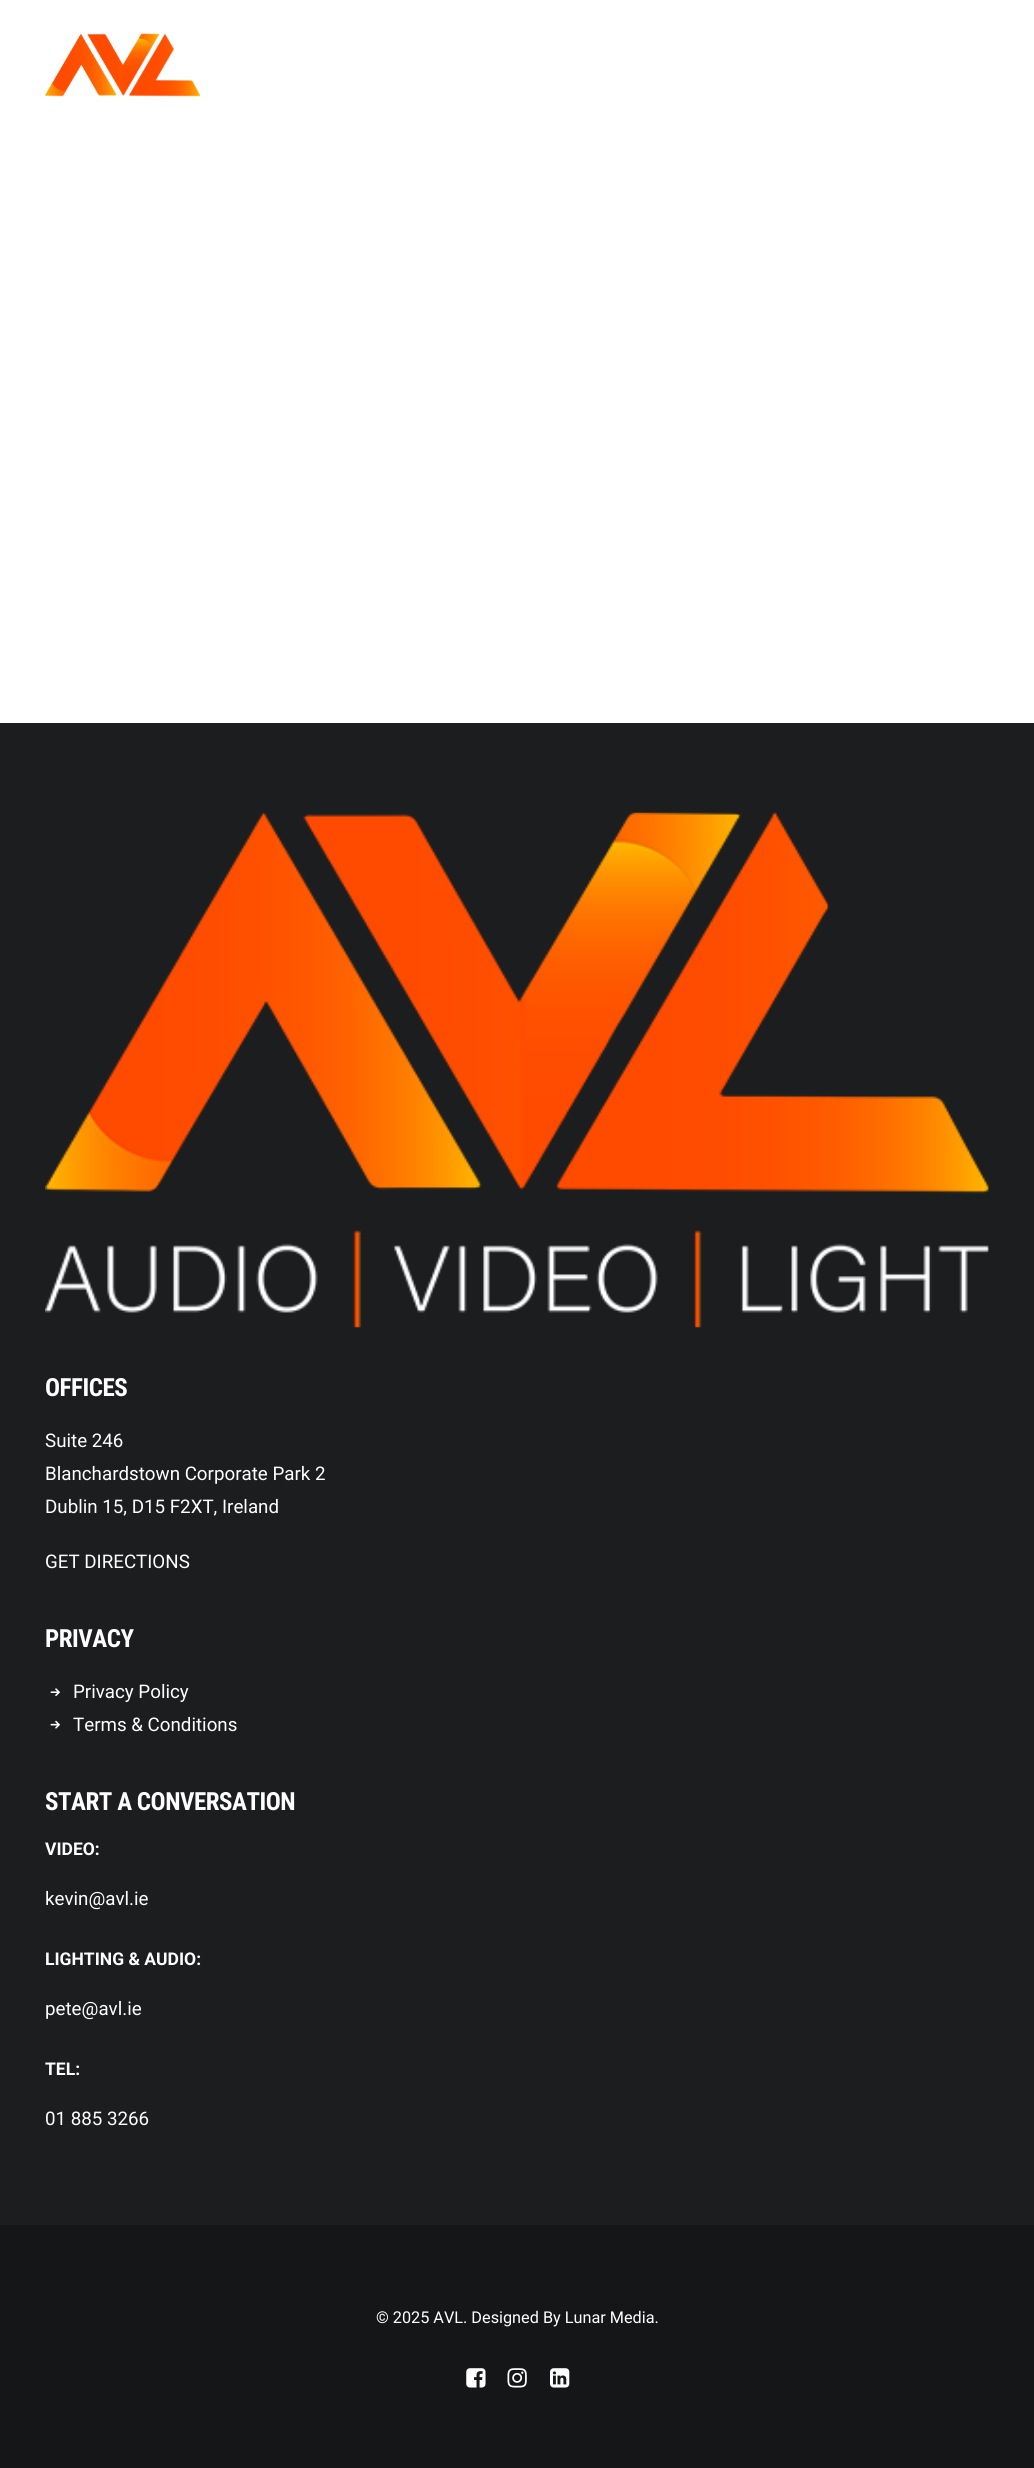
import math
import cairocffi as cairo

surface = cairo.ImageSurface(cairo.FORMAT_RGB24, 1034, 2468)
cr = cairo.Context(surface)
options = cairo.FontOptions()
options.set_hint_metrics(cairo.HINT_METRICS_OFF)
options.set_hint_style(cairo.HINT_STYLE_NONE)
cr.set_font_options(options)
cr.set_miter_limit(4)


def use_color(code):
    cr.set_source_rgb(*(v / 255 for v in bytes.fromhex(code[-6:])))


def spaced_text(x, y, s, letter, word):
    cr.move_to(x, y)
    for ch in s:
        cr.show_text(ch)
        cr.rel_move_to(letter + word * (ch == ' '), 0)


def picture(path, x, y, w, h):
    cr.save()
    cr.set_source_surface(cairo.ImageSurface.create_from_png(path), x, y)
    cr.rectangle(x, y, w, h)
    cr.fill()
    cr.restore()


use_color("#141618")
cr.paint()
use_color("#ffffff")
cr.rectangle(0, 0, 1034, 723)
cr.fill()
picture("img1.png", 45, 33, 156, 64)
use_color("#1b1d1f")
cr.rectangle(0, 723, 1034, 1502)
cr.fill()
picture("img2.png", 45, 812, 944, 516)
cr.select_font_face("Roboto Condensed", cairo.FONT_SLANT_NORMAL, cairo.FONT_WEIGHT_BOLD)
cr.set_font_size(25)
use_color("#ffffff")
spaced_text(45, 1396, "OFFICES", -0.5, 0)
cr.select_font_face("Roboto")
cr.set_font_size(18.75)
cr.move_to(45, 1447)
cr.show_text("Suite 246")
cr.move_to(45, 1480)
cr.show_text("Blanchardstown Corporate Park 2")
cr.move_to(45, 1513)
cr.show_text("Dublin 15, D15 F2XT, Ireland")
cr.move_to(45, 1568)
cr.show_text("GET DIRECTIONS")
cr.select_font_face("Roboto Condensed", cairo.FONT_SLANT_NORMAL, cairo.FONT_WEIGHT_BOLD)
cr.set_font_size(25)
spaced_text(45, 1647, "PRIVACY", -0.5, 0)
picture("img3.png", 50, 1688, 11, 8)
cr.select_font_face("Roboto")
cr.set_font_size(18.75)
cr.move_to(73, 1698)
cr.show_text("Privacy Policy")
picture("img4.png", 50, 1720, 11, 9)
cr.move_to(73, 1731)
cr.show_text("Terms & Conditions")
cr.select_font_face("Roboto Condensed", cairo.FONT_SLANT_NORMAL, cairo.FONT_WEIGHT_BOLD)
cr.set_font_size(25)
spaced_text(45, 1810, "START A CONVERSATION", -0.5, 0)
cr.select_font_face("Roboto", cairo.FONT_SLANT_NORMAL, cairo.FONT_WEIGHT_BOLD)
cr.set_font_size(17.5)
cr.move_to(45, 1855)
cr.show_text("VIDEO:")
cr.select_font_face("Roboto")
cr.set_font_size(18.75)
cr.move_to(45, 1905)
cr.show_text("kevin@avl.ie")
cr.select_font_face("Roboto", cairo.FONT_SLANT_NORMAL, cairo.FONT_WEIGHT_BOLD)
cr.set_font_size(17.5)
cr.move_to(45, 1965)
cr.show_text("LIGHTING & AUDIO:")
cr.select_font_face("Roboto")
cr.set_font_size(18.75)
cr.move_to(45, 2015)
cr.show_text("pete@avl.ie")
cr.select_font_face("Roboto", cairo.FONT_SLANT_NORMAL, cairo.FONT_WEIGHT_BOLD)
cr.set_font_size(17.5)
cr.move_to(45, 2075)
cr.show_text("TEL:")
cr.select_font_face("Roboto")
cr.set_font_size(18.75)
cr.move_to(45, 2125)
cr.show_text("01 885 3266")
cr.set_font_size(16.25)
cr.move_to(376, 2323)
cr.show_text("© 2025 AVL. Designed By Lunar Media.")
picture("img5.png", 466, 2368, 20, 20)
picture("img6.png", 507, 2368, 20, 20)
picture("img7.png", 550, 2368, 20, 20)
surface.write_to_png("result.png")
